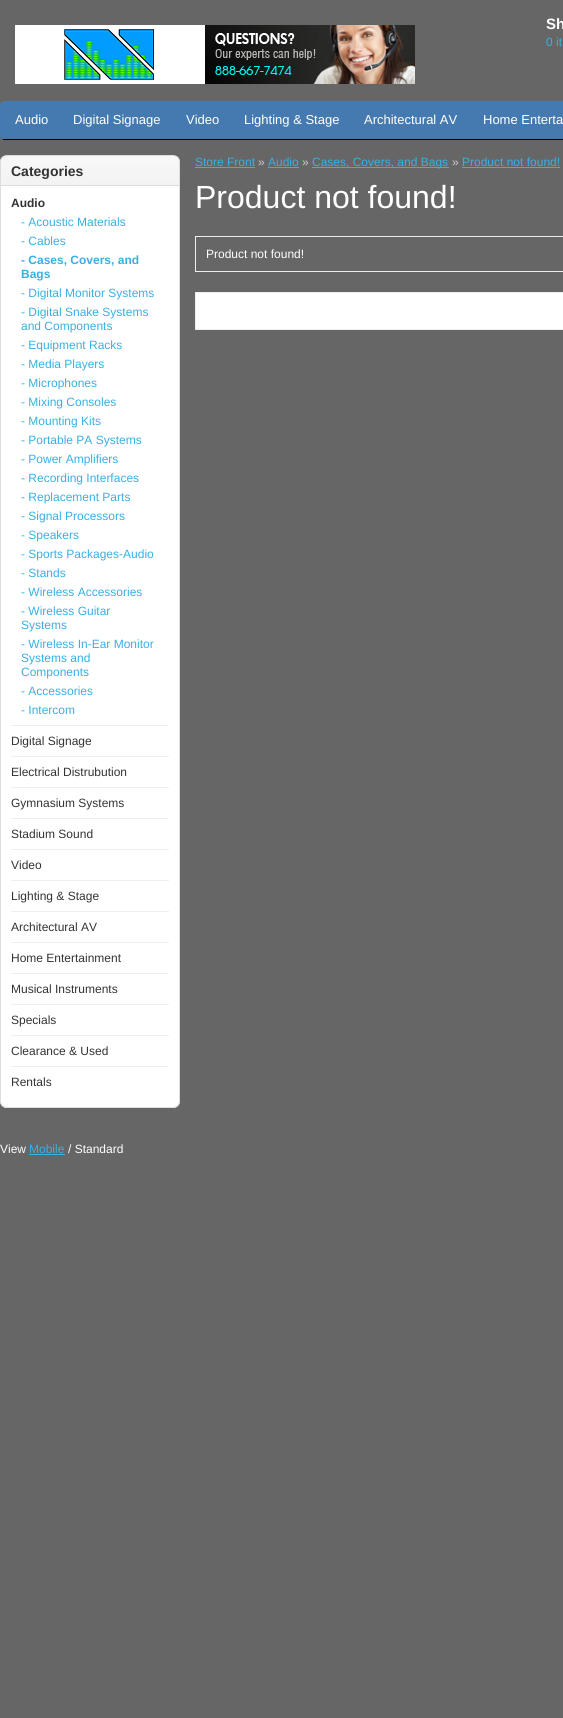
import math
import cairocffi as cairo

surface = cairo.ImageSurface(cairo.FORMAT_RGB24, 563, 1718)
cr = cairo.Context(surface)
options = cairo.FontOptions()
options.set_hint_metrics(cairo.HINT_METRICS_OFF)
options.set_hint_style(cairo.HINT_STYLE_NONE)
cr.set_font_options(options)
cr.set_miter_limit(4)


def use_color(code):
    cr.set_source_rgb(*(v / 255 for v in bytes.fromhex(code[-6:])))


def round_rect(x, y, w, h, r):
    cr.new_sub_path()
    for i, (u, v) in enumerate([(x + w - r, y + h - r), (x + r, y + h - r), (x + r, y + r), (x + w - r, y + r)]):
        cr.arc(u, v, r, i * math.pi / 2, (i + 1) * math.pi / 2)
    cr.close_path()


def picture(path, x, y, w, h):
    cr.save()
    cr.set_source_surface(cairo.ImageSurface.create_from_png(path), x, y)
    cr.rectangle(x, y, w, h)
    cr.fill()
    cr.restore()


use_color("#666666")
cr.paint()
picture("img1.png", 15, 25, 400, 59)
cr.select_font_face("Liberation Sans", cairo.FONT_SLANT_NORMAL, cairo.FONT_WEIGHT_BOLD)
cr.set_font_size(15)
use_color("#ffffff")
cr.move_to(546, 29)
cr.show_text("Sh")
cr.select_font_face("Liberation Sans")
cr.set_font_size(12)
use_color("#38b0e3")
cr.move_to(546, 46)
cr.show_text("0 it")
use_color("#457ab0")
round_rect(0, 101, 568, 39, 5)
cr.fill()
use_color("#000000")
cr.rectangle(3, 139, 560, 1)
cr.fill()
cr.set_font_size(13)
use_color("#ffffff")
cr.move_to(15, 124)
cr.show_text("Audio")
cr.move_to(73, 124)
cr.show_text("Digital Signage")
cr.move_to(186, 124)
cr.show_text("Video")
cr.move_to(244, 124)
cr.show_text("Lighting & Stage")
cr.move_to(364, 124)
cr.show_text("Architectural AV")
cr.move_to(483, 124)
cr.show_text("Home Enterta")
picture("img2.png", 0, 156, 180, 29)
cr.new_path()
cr.move_to(7, 155.5)
cr.line_to(173, 155.5)
cr.curve_to(176.5, 155.5, 179.5, 158.5, 179.5, 162)
cr.line_to(179.5, 185.5)
cr.line_to(0.5, 185.5)
cr.line_to(0.5, 162)
cr.curve_to(0.5, 158.5, 3.5, 155.5, 7, 155.5)
cr.close_path()
use_color("#dbdee1")
cr.set_line_width(1)
cr.stroke()
cr.select_font_face("Liberation Sans", cairo.FONT_SLANT_NORMAL, cairo.FONT_WEIGHT_BOLD)
cr.set_font_size(14)
use_color("#333333")
cr.move_to(11, 176)
cr.show_text("Categories")
use_color("#ffffff")
cr.new_path()
cr.move_to(0, 186)
cr.line_to(180, 186)
cr.line_to(180, 1101)
cr.curve_to(180, 1105, 177, 1108, 173, 1108)
cr.line_to(7, 1108)
cr.curve_to(3, 1108, 0, 1105, 0, 1101)
cr.close_path()
cr.fill()
use_color("#dbdee1")
cr.set_fill_rule(cairo.FILL_RULE_EVEN_ODD)
cr.new_path()
cr.move_to(0, 186)
cr.line_to(180, 186)
cr.line_to(180, 1101)
cr.curve_to(180, 1105, 177, 1108, 173, 1108)
cr.line_to(7, 1108)
cr.curve_to(3, 1108, 0, 1105, 0, 1101)
cr.close_path()
cr.move_to(1, 186)
cr.line_to(179, 186)
cr.line_to(179, 1101)
cr.curve_to(179, 1104, 176, 1107, 173, 1107)
cr.line_to(7, 1107)
cr.curve_to(4, 1107, 1, 1104, 1, 1101)
cr.close_path()
cr.fill()
cr.set_font_size(12)
use_color("#333333")
cr.move_to(11, 207)
cr.show_text("Audio")
cr.select_font_face("Liberation Sans")
use_color("#38b0e3")
cr.move_to(21, 226)
cr.show_text("- Acoustic Materials")
cr.move_to(21, 245)
cr.show_text("- Cables")
cr.select_font_face("Liberation Sans", cairo.FONT_SLANT_NORMAL, cairo.FONT_WEIGHT_BOLD)
cr.move_to(21, 264)
cr.show_text("- Cases, Covers, and")
cr.move_to(21, 278)
cr.show_text("Bags")
cr.select_font_face("Liberation Sans")
cr.move_to(21, 297)
cr.show_text("- Digital Monitor Systems")
cr.move_to(21, 316)
cr.show_text("- Digital Snake Systems")
cr.move_to(21, 330)
cr.show_text("and Components")
cr.move_to(21, 349)
cr.show_text("- Equipment Racks")
cr.move_to(21, 368)
cr.show_text("- Media Players")
cr.move_to(21, 387)
cr.show_text("- Microphones")
cr.move_to(21, 406)
cr.show_text("- Mixing Consoles")
cr.move_to(21, 425)
cr.show_text("- Mounting Kits")
cr.move_to(21, 444)
cr.show_text("- Portable PA Systems")
cr.move_to(21, 463)
cr.show_text("- Power Amplifiers")
cr.move_to(21, 482)
cr.show_text("- Recording Interfaces")
cr.move_to(21, 501)
cr.show_text("- Replacement Parts")
cr.move_to(21, 520)
cr.show_text("- Signal Processors")
cr.move_to(21, 539)
cr.show_text("- Speakers")
cr.move_to(21, 558)
cr.show_text("- Sports Packages-Audio")
cr.move_to(21, 577)
cr.show_text("- Stands")
cr.move_to(21, 596)
cr.show_text("- Wireless Accessories")
cr.move_to(21, 615)
cr.show_text("- Wireless Guitar")
cr.move_to(21, 629)
cr.show_text("Systems")
cr.move_to(21, 648)
cr.show_text("- Wireless In-Ear Monitor")
cr.move_to(21, 662)
cr.show_text("Systems and")
cr.move_to(21, 676)
cr.show_text("Components")
cr.move_to(21, 695)
cr.show_text("- Accessories")
cr.move_to(21, 714)
cr.show_text("- Intercom")
use_color("#eeeeee")
cr.rectangle(11, 725, 158, 1)
cr.fill()
use_color("#333333")
cr.move_to(11, 745)
cr.show_text("Digital Signage")
use_color("#eeeeee")
cr.rectangle(11, 756, 158, 1)
cr.fill()
use_color("#333333")
cr.move_to(11, 776)
cr.show_text("Electrical Distrubution")
use_color("#eeeeee")
cr.rectangle(11, 787, 158, 1)
cr.fill()
use_color("#333333")
cr.move_to(11, 807)
cr.show_text("Gymnasium Systems")
use_color("#eeeeee")
cr.rectangle(11, 818, 158, 1)
cr.fill()
use_color("#333333")
cr.move_to(11, 838)
cr.show_text("Stadium Sound")
use_color("#eeeeee")
cr.rectangle(11, 849, 158, 1)
cr.fill()
use_color("#333333")
cr.move_to(11, 869)
cr.show_text("Video")
use_color("#eeeeee")
cr.rectangle(11, 880, 158, 1)
cr.fill()
use_color("#333333")
cr.move_to(11, 900)
cr.show_text("Lighting & Stage")
use_color("#eeeeee")
cr.rectangle(11, 911, 158, 1)
cr.fill()
use_color("#333333")
cr.move_to(11, 931)
cr.show_text("Architectural AV")
use_color("#eeeeee")
cr.rectangle(11, 942, 158, 1)
cr.fill()
use_color("#333333")
cr.move_to(11, 962)
cr.show_text("Home Entertainment")
use_color("#eeeeee")
cr.rectangle(11, 973, 158, 1)
cr.fill()
use_color("#333333")
cr.move_to(11, 993)
cr.show_text("Musical Instruments")
use_color("#eeeeee")
cr.rectangle(11, 1004, 158, 1)
cr.fill()
use_color("#333333")
cr.move_to(11, 1024)
cr.show_text("Specials")
use_color("#eeeeee")
cr.rectangle(11, 1035, 158, 1)
cr.fill()
use_color("#333333")
cr.move_to(11, 1055)
cr.show_text("Clearance & Used")
use_color("#eeeeee")
cr.rectangle(11, 1066, 158, 1)
cr.fill()
use_color("#333333")
cr.move_to(11, 1086)
cr.show_text("Rentals")
use_color("#38b0e3")
cr.move_to(195, 166)
cr.show_text("Store Front")
cr.rectangle(195, 167, 60, 1)
cr.fill()
use_color("#cccccc")
cr.move_to(258, 166)
cr.show_text("»")
use_color("#38b0e3")
cr.move_to(268, 166)
cr.show_text("Audio")
cr.rectangle(268, 167, 31, 1)
cr.fill()
use_color("#cccccc")
cr.move_to(302, 166)
cr.show_text("»")
use_color("#38b0e3")
cr.rectangle(312, 167, 137, 1)
cr.fill()
cr.move_to(312, 166)
cr.show_text("Cases, Covers, and Bags")
use_color("#cccccc")
cr.move_to(452, 166)
cr.show_text("»")
use_color("#38b0e3")
cr.move_to(462, 166)
cr.show_text("Product not found!")
cr.rectangle(462, 167, 98, 1)
cr.fill()
cr.set_font_size(32)
use_color("#ffffff")
cr.move_to(195, 208)
cr.show_text("Product not found!")
cr.rectangle(195.5, 236.5, 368, 35)
use_color("#eeeeee")
cr.stroke()
cr.set_font_size(12)
use_color("#ffffff")
cr.move_to(206, 258)
cr.show_text("Product not found!")
cr.rectangle(195.5, 292.5, 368, 37)
cr.fill_preserve()
use_color("#eeeeee")
cr.stroke()
use_color("#ffffff")
cr.move_to(0, 1153)
cr.show_text("View")
use_color("#38b0e3")
cr.move_to(29, 1153)
cr.show_text("Mobile")
cr.rectangle(29, 1154, 36, 1)
cr.fill()
use_color("#ffffff")
cr.move_to(68, 1153)
cr.show_text("/ Standard")
surface.write_to_png("result.png")
